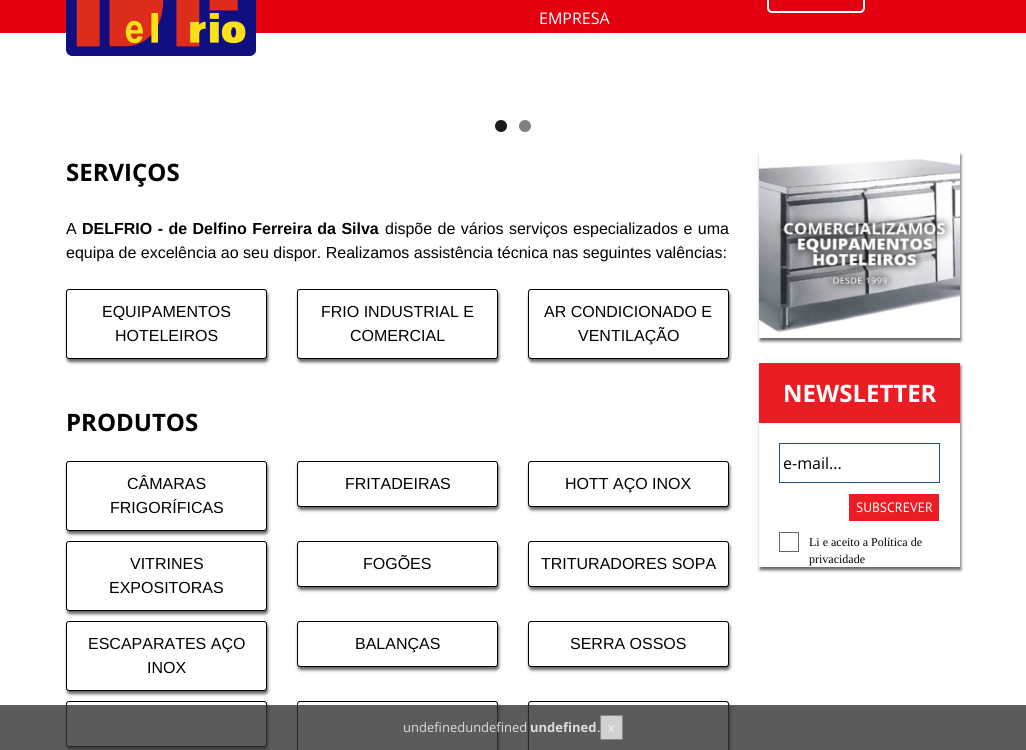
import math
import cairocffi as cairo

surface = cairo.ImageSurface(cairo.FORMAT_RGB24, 1026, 750)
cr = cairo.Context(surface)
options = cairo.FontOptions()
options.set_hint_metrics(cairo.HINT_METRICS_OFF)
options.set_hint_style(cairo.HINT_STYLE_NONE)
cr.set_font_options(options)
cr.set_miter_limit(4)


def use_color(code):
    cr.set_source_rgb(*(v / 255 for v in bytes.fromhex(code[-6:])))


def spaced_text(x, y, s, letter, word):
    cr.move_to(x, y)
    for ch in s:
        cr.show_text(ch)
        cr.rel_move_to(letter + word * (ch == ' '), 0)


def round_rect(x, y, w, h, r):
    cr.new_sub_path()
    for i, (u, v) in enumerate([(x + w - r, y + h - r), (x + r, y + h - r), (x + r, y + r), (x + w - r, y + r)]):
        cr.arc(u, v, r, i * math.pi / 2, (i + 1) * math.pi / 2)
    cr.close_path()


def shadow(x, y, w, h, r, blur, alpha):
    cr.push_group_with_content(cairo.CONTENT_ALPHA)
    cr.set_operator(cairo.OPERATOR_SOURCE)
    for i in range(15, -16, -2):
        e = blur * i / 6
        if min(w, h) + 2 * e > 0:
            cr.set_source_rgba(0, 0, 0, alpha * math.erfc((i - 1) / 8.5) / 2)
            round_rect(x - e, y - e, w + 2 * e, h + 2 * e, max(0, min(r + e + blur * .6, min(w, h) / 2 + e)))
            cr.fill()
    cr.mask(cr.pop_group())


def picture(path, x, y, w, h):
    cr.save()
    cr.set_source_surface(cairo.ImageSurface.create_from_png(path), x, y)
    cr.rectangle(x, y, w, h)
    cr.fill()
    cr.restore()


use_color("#ffffff")
cr.paint()
use_color("#e3010f")
cr.rectangle(0, 0, 1026, 33)
cr.fill()
picture("img1.png", 66, 0, 190, 56)
round_rect(768, -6, 96, 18, 4)
use_color("#ffffff")
cr.stroke()
cr.select_font_face("Open Sans")
cr.set_font_size(16)
cr.move_to(539, 24)
cr.show_text("EMPRESA")
use_color("#1a1a1a")
cr.new_path()
cr.arc(501, 126, 6, 0, 2 * math.pi)
cr.fill()
use_color("#808080")
cr.arc(525, 126, 6, 0, 2 * math.pi)
cr.fill()
cr.select_font_face("Open Sans", cairo.FONT_SLANT_NORMAL, cairo.FONT_WEIGHT_BOLD)
cr.set_font_size(24)
use_color("#000000")
cr.move_to(66, 181)
cr.show_text("SERVIÇOS")
cr.select_font_face("Liberation Sans")
cr.set_font_size(16)
cr.move_to(66, 234)
cr.show_text("A")
cr.select_font_face("Liberation Sans", cairo.FONT_SLANT_NORMAL, cairo.FONT_WEIGHT_BOLD)
spaced_text(82, 234, "DELFRIO - de Delfino Ferreira da Silva", 0, 1)
cr.select_font_face("Liberation Sans")
spaced_text(385, 234, "dispõe de vários serviços especializados e uma", 0, 1)
cr.move_to(66, 258)
cr.show_text("equipa de excelência ao seu dispor. Realizamos assistência técnica nas seguintes valências:")
use_color("#323232")
shadow(67, 292, 201, 70, 3, 1.5, 0.75)
use_color("#ffffff")
round_rect(66.5, 289.5, 200, 69, 2.5)
cr.fill_preserve()
use_color("#000000")
cr.set_line_width(1)
cr.stroke()
cr.move_to(102, 317)
cr.show_text("EQUIPAMENTOS")
cr.move_to(115, 341)
cr.show_text("HOTELEIROS")
use_color("#323232")
shadow(298, 292, 201, 70, 3, 1.5, 0.75)
use_color("#ffffff")
round_rect(297.5, 289.5, 200, 69, 2.5)
cr.fill_preserve()
use_color("#000000")
cr.stroke()
cr.move_to(321, 317)
cr.show_text("FRIO INDUSTRIAL E")
cr.move_to(350, 341)
cr.show_text("COMERCIAL")
use_color("#323232")
shadow(529, 292, 201, 70, 3, 1.5, 0.75)
use_color("#ffffff")
round_rect(528.5, 289.5, 200, 69, 2.5)
cr.fill_preserve()
use_color("#000000")
cr.stroke()
cr.move_to(544, 317)
cr.show_text("AR CONDICIONADO E")
cr.move_to(578, 341)
cr.show_text("VENTILAÇÃO")
cr.select_font_face("Open Sans", cairo.FONT_SLANT_NORMAL, cairo.FONT_WEIGHT_BOLD)
cr.set_font_size(24)
cr.move_to(66, 431)
cr.show_text("PRODUTOS")
use_color("#323232")
shadow(67, 464, 201, 70, 3, 1.5, 0.75)
use_color("#ffffff")
round_rect(66.5, 461.5, 200, 69, 2.5)
cr.fill_preserve()
use_color("#000000")
cr.stroke()
cr.select_font_face("Liberation Sans")
cr.set_font_size(16)
cr.move_to(127, 489)
cr.show_text("CÂMARAS")
cr.move_to(110, 513)
cr.show_text("FRIGORÍFICAS")
use_color("#323232")
shadow(298, 464, 201, 46, 3, 1.5, 0.75)
use_color("#ffffff")
round_rect(297.5, 461.5, 200, 45, 2.5)
cr.fill_preserve()
use_color("#000000")
cr.stroke()
cr.move_to(345, 489)
cr.show_text("FRITADEIRAS")
use_color("#323232")
shadow(529, 464, 201, 46, 3, 1.5, 0.75)
use_color("#ffffff")
round_rect(528.5, 461.5, 200, 45, 2.5)
cr.fill_preserve()
use_color("#000000")
cr.stroke()
cr.move_to(565, 489)
cr.show_text("HOTT AÇO INOX")
use_color("#323232")
shadow(67, 544, 201, 70, 3, 1.5, 0.75)
use_color("#ffffff")
round_rect(66.5, 541.5, 200, 69, 2.5)
cr.fill_preserve()
use_color("#000000")
cr.stroke()
cr.move_to(130, 569)
cr.show_text("VITRINES")
cr.move_to(109, 593)
cr.show_text("EXPOSITORAS")
use_color("#323232")
shadow(298, 544, 201, 46, 3, 1.5, 0.75)
use_color("#ffffff")
round_rect(297.5, 541.5, 200, 45, 2.5)
cr.fill_preserve()
use_color("#000000")
cr.stroke()
cr.move_to(363, 569)
cr.show_text("FOGÕES")
use_color("#323232")
shadow(529, 544, 201, 46, 3, 1.5, 0.75)
use_color("#ffffff")
round_rect(528.5, 541.5, 200, 45, 2.5)
cr.fill_preserve()
use_color("#000000")
cr.stroke()
cr.move_to(541, 569)
cr.show_text("TRITURADORES SOPA")
use_color("#323232")
shadow(67, 624, 201, 70, 3, 1.5, 0.75)
use_color("#ffffff")
round_rect(66.5, 621.5, 200, 69, 2.5)
cr.fill_preserve()
use_color("#000000")
cr.stroke()
cr.move_to(88, 649)
cr.show_text("ESCAPARATES AÇO")
cr.move_to(147, 673)
cr.show_text("INOX")
use_color("#323232")
shadow(298, 624, 201, 46, 3, 1.5, 0.75)
use_color("#ffffff")
round_rect(297.5, 621.5, 200, 45, 2.5)
cr.fill_preserve()
use_color("#000000")
cr.stroke()
cr.move_to(355, 649)
cr.show_text("BALANÇAS")
use_color("#323232")
shadow(529, 624, 201, 46, 3, 1.5, 0.75)
use_color("#ffffff")
round_rect(528.5, 621.5, 200, 45, 2.5)
cr.fill_preserve()
use_color("#000000")
cr.stroke()
cr.move_to(570, 649)
cr.show_text("SERRA OSSOS")
use_color("#323232")
shadow(67, 704, 201, 46, 3, 1.5, 0.75)
use_color("#ffffff")
round_rect(66.5, 701.5, 200, 45, 2.5)
cr.fill_preserve()
use_color("#000000")
cr.stroke()
use_color("#323232")
shadow(298, 704, 201, 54, 3, 1.5, 0.75)
use_color("#ffffff")
round_rect(297.5, 701.5, 200, 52, 2.5)
cr.fill_preserve()
use_color("#000000")
cr.stroke()
use_color("#323232")
shadow(529, 704, 201, 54, 3, 1.5, 0.75)
use_color("#ffffff")
round_rect(528.5, 701.5, 200, 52, 2.5)
cr.fill_preserve()
use_color("#000000")
cr.stroke()
cr.save()
cr.set_fill_rule(cairo.FILL_RULE_EVEN_ODD)
cr.new_path()
cr.move_to(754, 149)
cr.line_to(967, 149)
cr.line_to(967, 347)
cr.line_to(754, 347)
cr.close_path()
cr.move_to(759, 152)
cr.line_to(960, 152)
cr.line_to(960, 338)
cr.line_to(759, 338)
cr.close_path()
cr.clip()
use_color("#323232")
shadow(760, 155, 201, 186, 0, 1.5, 0.75)
cr.restore()
picture("img2.png", 759, 159, 201, 174)
cr.save()
cr.set_fill_rule(cairo.FILL_RULE_EVEN_ODD)
cr.new_path()
cr.move_to(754, 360)
cr.line_to(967, 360)
cr.line_to(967, 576)
cr.line_to(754, 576)
cr.close_path()
cr.move_to(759, 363)
cr.line_to(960, 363)
cr.line_to(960, 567)
cr.line_to(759, 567)
cr.close_path()
cr.clip()
use_color("#323232")
shadow(760, 366, 201, 204, 0, 1.5, 0.75)
cr.restore()
use_color("#eb1c24")
cr.rectangle(759, 363, 201, 60)
cr.fill()
cr.select_font_face("Open Sans", cairo.FONT_SLANT_NORMAL, cairo.FONT_WEIGHT_BOLD)
cr.set_font_size(24)
use_color("#ffffff")
cr.move_to(783, 402)
cr.show_text("NEWSLETTER")
cr.rectangle(779.5, 443.5, 160, 39)
use_color("#255084")
cr.stroke()
cr.select_font_face("Open Sans")
cr.set_font_size(16)
use_color("#000000")
cr.move_to(783, 469)
cr.show_text("e-mail...")
use_color("#eb1c24")
cr.rectangle(849, 494, 90, 27)
cr.fill()
cr.select_font_face("PT Sans")
cr.set_font_size(13.5)
use_color("#ffffff")
cr.move_to(856, 512)
cr.show_text("SUBSCREVER")
cr.rectangle(779.5, 532.5, 19, 19)
use_color("#666666")
cr.stroke()
cr.select_font_face("Liberation Serif")
cr.set_font_size(12)
use_color("#000000")
cr.move_to(809, 546)
cr.show_text("Li e aceito a Política de")
cr.move_to(809, 563)
cr.show_text("privacidade")
cr.set_source_rgba(0.2, 0.2, 0.2, 0.8)
cr.rectangle(0, 705, 1026, 45)
cr.fill()
cr.select_font_face("Open Sans")
cr.set_font_size(13)
use_color("#dddddd")
cr.move_to(403, 732)
cr.show_text("undefinedundefined")
cr.select_font_face("Open Sans", cairo.FONT_SLANT_NORMAL, cairo.FONT_WEIGHT_BOLD)
cr.move_to(530, 732)
cr.show_text("undefined")
cr.select_font_face("Open Sans")
use_color("#ffffff")
cr.move_to(597, 732)
cr.show_text(".")
cr.set_source_rgba(0.937, 0.937, 0.937, 0.8)
round_rect(600, 715, 23, 25, 2)
cr.fill()
round_rect(600.5, 715.5, 22, 24, 1.5)
cr.set_source_rgba(0.463, 0.463, 0.463, 0.8)
cr.stroke()
use_color("#f6f6f6")
cr.move_to(608, 732)
cr.show_text("x")
surface.write_to_png("result.png")
